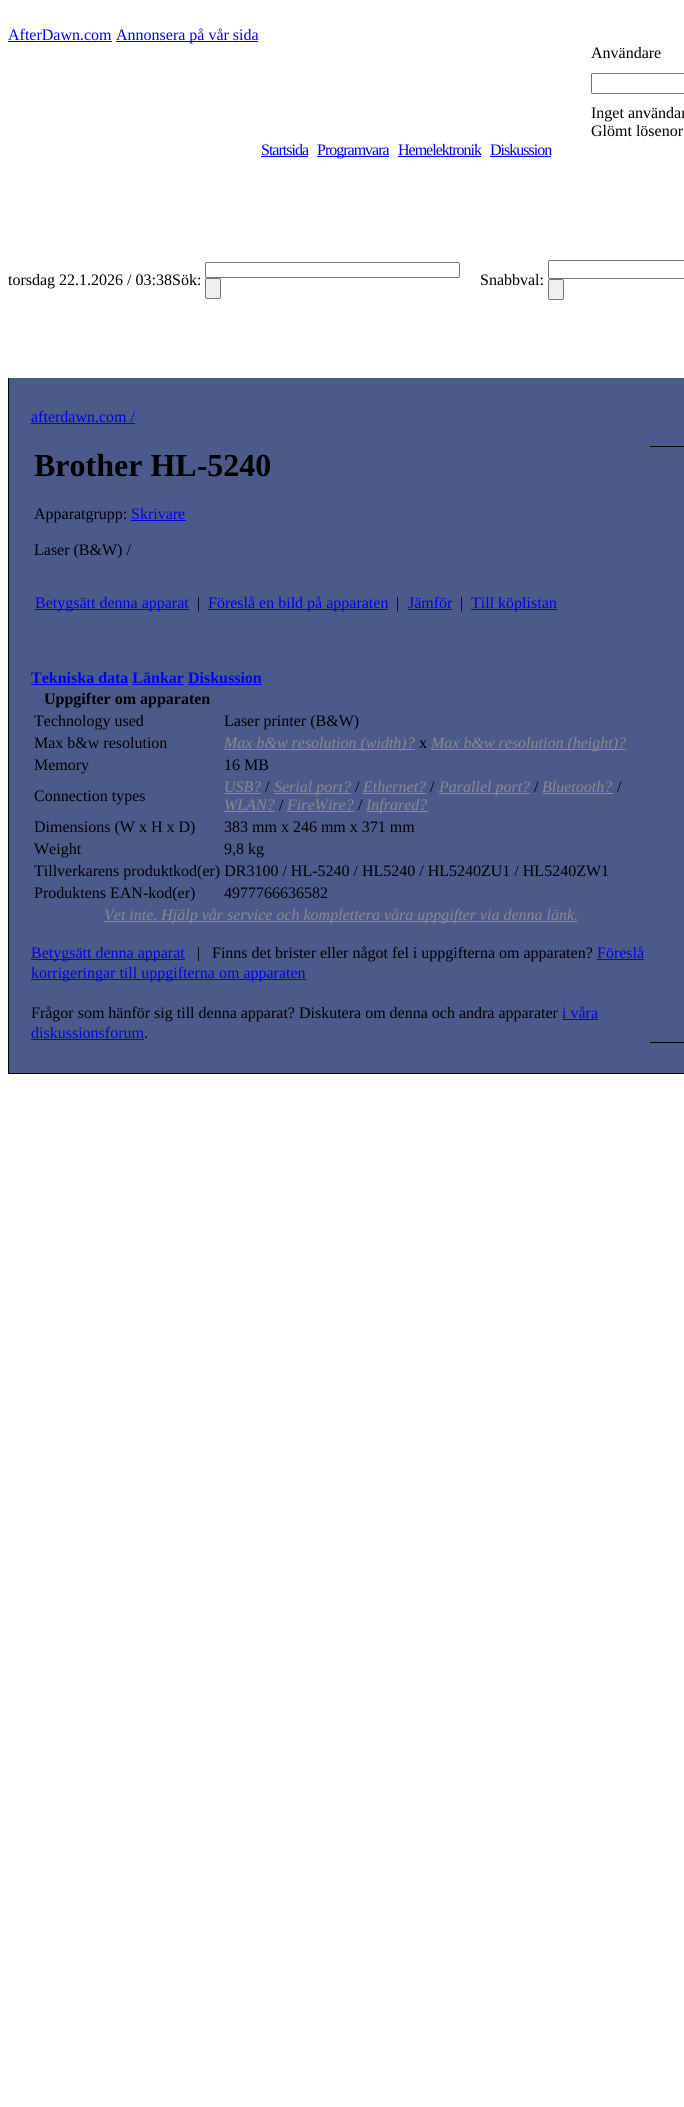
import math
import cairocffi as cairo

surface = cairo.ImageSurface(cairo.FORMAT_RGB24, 684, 2107)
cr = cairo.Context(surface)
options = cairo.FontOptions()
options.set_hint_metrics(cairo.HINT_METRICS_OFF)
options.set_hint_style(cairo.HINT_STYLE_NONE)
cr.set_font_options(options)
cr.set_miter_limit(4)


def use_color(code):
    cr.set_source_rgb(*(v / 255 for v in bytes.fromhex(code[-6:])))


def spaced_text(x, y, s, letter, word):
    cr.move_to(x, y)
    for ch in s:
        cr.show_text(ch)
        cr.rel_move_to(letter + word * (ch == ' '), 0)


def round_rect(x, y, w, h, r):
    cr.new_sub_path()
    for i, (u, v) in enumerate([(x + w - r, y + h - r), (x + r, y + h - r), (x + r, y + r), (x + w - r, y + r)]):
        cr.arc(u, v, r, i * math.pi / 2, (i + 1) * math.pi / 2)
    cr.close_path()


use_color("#ffffff")
cr.paint()
cr.select_font_face("Liberation Serif")
cr.set_font_size(16)
use_color("#0000ee")
cr.move_to(8, 40)
cr.show_text("AfterDawn.com")
cr.rectangle(8, 41, 104, 1)
cr.fill()
cr.rectangle(116, 41, 142, 1)
cr.fill()
cr.move_to(116, 40)
cr.show_text("Annonsera på vår sida")
use_color("#000000")
cr.move_to(591, 58)
cr.show_text("Användare")
round_rect(591.5, 73.5, 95, 20, 1.5)
use_color("#767676")
cr.set_line_width(1)
cr.stroke()
use_color("#000000")
cr.move_to(591, 118)
cr.show_text("Inget användar")
cr.move_to(591, 136)
cr.show_text("Glömt lösenor")
use_color("#0000ee")
spaced_text(261, 155, "Startsida", -1, 0)
cr.rectangle(261, 156, 47, 1)
cr.fill()
cr.rectangle(317, 156, 72, 1)
cr.fill()
spaced_text(317, 155, "Programvara", -1, 0)
spaced_text(398, 155, "Hemelektronik", -1, 0)
cr.rectangle(398, 156, 83, 1)
cr.fill()
spaced_text(490, 155, "Diskussion", -1, 0)
cr.rectangle(490, 156, 61, 1)
cr.fill()
use_color("#000000")
cr.move_to(8, 285)
cr.show_text("torsdag 22.1.2026 / 03:38Sök:")
round_rect(205.5, 262.5, 254, 15, 1.5)
use_color("#767676")
cr.stroke()
use_color("#efefef")
round_rect(205.5, 278.5, 15, 20, 1.5)
cr.fill_preserve()
use_color("#767676")
cr.stroke()
use_color("#000000")
cr.move_to(480, 285)
cr.show_text("Snabbval:")
round_rect(548.5, 260.5, 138, 18, 1.5)
use_color("#767676")
cr.stroke()
use_color("#efefef")
round_rect(548.5, 279.5, 15, 20, 1.5)
cr.fill_preserve()
use_color("#767676")
cr.stroke()
use_color("#4c5a89")
cr.rectangle(9, 378, 675, 695)
cr.fill()
use_color("#000000")
cr.rectangle(8, 1073, 676, 1)
cr.fill()
cr.rectangle(8, 378, 1, 696)
cr.fill()
use_color("#0000ee")
cr.move_to(31, 422)
cr.show_text("afterdawn.com /")
cr.rectangle(31, 423, 104, 1)
cr.fill()
cr.select_font_face("Liberation Serif", cairo.FONT_SLANT_NORMAL, cairo.FONT_WEIGHT_BOLD)
cr.set_font_size(32)
use_color("#000000")
cr.move_to(34, 476)
cr.show_text("Brother HL-5240")
cr.select_font_face("Liberation Serif")
cr.set_font_size(16)
cr.move_to(34, 519)
cr.show_text("Apparatgrupp:")
use_color("#0000ee")
cr.move_to(131, 519)
cr.show_text("Skrivare")
cr.rectangle(131, 520, 55, 1)
cr.fill()
use_color("#000000")
cr.move_to(34, 555)
cr.show_text("Laser (B&W) /")
use_color("#0000ee")
cr.rectangle(35, 609, 154, 1)
cr.fill()
cr.move_to(35, 608)
cr.show_text("Betygsätt denna apparat")
use_color("#000000")
cr.move_to(197, 608)
cr.show_text("|")
use_color("#0000ee")
cr.rectangle(208, 609, 180, 1)
cr.fill()
cr.move_to(208, 608)
cr.show_text("Föreslå en bild på apparaten")
use_color("#000000")
cr.move_to(396, 608)
cr.show_text("|")
use_color("#0000ee")
cr.move_to(408, 608)
cr.show_text("Jämför")
cr.rectangle(408, 609, 44, 1)
cr.fill()
use_color("#000000")
cr.move_to(460, 608)
cr.show_text("|")
use_color("#0000ee")
cr.rectangle(471, 609, 86, 1)
cr.fill()
cr.move_to(471, 608)
cr.show_text("Till köplistan")
cr.select_font_face("Liberation Serif", cairo.FONT_SLANT_NORMAL, cairo.FONT_WEIGHT_BOLD)
cr.move_to(31, 683)
cr.show_text("Tekniska data Länkar Diskussion")
cr.rectangle(31, 684, 97, 1)
cr.fill()
cr.rectangle(132, 684, 52, 1)
cr.fill()
cr.rectangle(188, 684, 74, 1)
cr.fill()
use_color("#000000")
cr.move_to(44, 704)
cr.show_text("Uppgifter om apparaten")
cr.select_font_face("Liberation Serif")
cr.move_to(34, 726)
cr.show_text("Technology used")
cr.move_to(224, 726)
cr.show_text("Laser printer (B&W)")
cr.move_to(34, 748)
cr.show_text("Max b&w resolution")
use_color("#898989")
cr.rectangle(224, 749, 191, 1)
cr.fill()
cr.select_font_face("Liberation Serif", cairo.FONT_SLANT_ITALIC)
cr.move_to(224, 748)
cr.show_text("Max b&w resolution (width)?")
cr.select_font_face("Liberation Serif")
use_color("#000000")
cr.move_to(419, 748)
cr.show_text("x")
use_color("#898989")
cr.rectangle(431, 749, 195, 1)
cr.fill()
cr.select_font_face("Liberation Serif", cairo.FONT_SLANT_ITALIC)
cr.move_to(431, 748)
cr.show_text("Max b&w resolution (height)?")
cr.select_font_face("Liberation Serif")
use_color("#000000")
cr.move_to(34, 770)
cr.show_text("Memory")
cr.move_to(224, 770)
cr.show_text("16 MB")
cr.move_to(34, 801)
cr.show_text("Connection types")
cr.select_font_face("Liberation Serif", cairo.FONT_SLANT_ITALIC)
use_color("#898989")
cr.move_to(224, 792)
cr.show_text("USB?")
cr.rectangle(224, 793, 37, 1)
cr.fill()
cr.select_font_face("Liberation Serif")
use_color("#000000")
cr.move_to(265, 792)
cr.show_text("/")
use_color("#898989")
cr.rectangle(274, 793, 77, 1)
cr.fill()
cr.select_font_face("Liberation Serif", cairo.FONT_SLANT_ITALIC)
cr.move_to(274, 792)
cr.show_text("Serial port?")
cr.select_font_face("Liberation Serif")
use_color("#000000")
cr.move_to(355, 792)
cr.show_text("/")
cr.select_font_face("Liberation Serif", cairo.FONT_SLANT_ITALIC)
use_color("#898989")
cr.move_to(363, 792)
cr.show_text("Ethernet?")
cr.rectangle(363, 793, 63, 1)
cr.fill()
cr.select_font_face("Liberation Serif")
use_color("#000000")
cr.move_to(430, 792)
cr.show_text("/")
use_color("#898989")
cr.rectangle(439, 793, 91, 1)
cr.fill()
cr.select_font_face("Liberation Serif", cairo.FONT_SLANT_ITALIC)
cr.move_to(439, 792)
cr.show_text("Parallel port?")
cr.select_font_face("Liberation Serif")
use_color("#000000")
cr.move_to(534, 792)
cr.show_text("/")
cr.select_font_face("Liberation Serif", cairo.FONT_SLANT_ITALIC)
use_color("#898989")
cr.move_to(542, 792)
cr.show_text("Bluetooth?")
cr.rectangle(542, 793, 71, 1)
cr.fill()
cr.select_font_face("Liberation Serif")
use_color("#000000")
cr.move_to(617, 792)
cr.show_text("/")
cr.select_font_face("Liberation Serif", cairo.FONT_SLANT_ITALIC)
use_color("#898989")
cr.move_to(224, 810)
cr.show_text("WLAN?")
cr.rectangle(224, 811, 51, 1)
cr.fill()
cr.select_font_face("Liberation Serif")
use_color("#000000")
cr.move_to(279, 810)
cr.show_text("/")
cr.select_font_face("Liberation Serif", cairo.FONT_SLANT_ITALIC)
use_color("#898989")
cr.move_to(287, 810)
cr.show_text("FireWire?")
cr.rectangle(287, 811, 67, 1)
cr.fill()
cr.select_font_face("Liberation Serif")
use_color("#000000")
cr.move_to(358, 810)
cr.show_text("/")
use_color("#898989")
cr.rectangle(366, 811, 62, 1)
cr.fill()
cr.select_font_face("Liberation Serif", cairo.FONT_SLANT_ITALIC)
cr.move_to(366, 810)
cr.show_text("Infrared?")
cr.select_font_face("Liberation Serif")
use_color("#000000")
cr.move_to(34, 832)
cr.show_text("Dimensions (W x H x D)")
cr.move_to(224, 832)
cr.show_text("383 mm x 246 mm x 371 mm")
cr.move_to(34, 854)
cr.show_text("Weight")
cr.move_to(224, 854)
cr.show_text("9,8 kg")
cr.move_to(34, 876)
cr.show_text("Tillverkarens produktkod(er) DR3100 / HL-5240 / HL5240 / HL5240ZU1 / HL5240ZW1")
cr.move_to(34, 898)
cr.show_text("Produktens EAN-kod(er)")
cr.move_to(224, 898)
cr.show_text("4977766636582")
use_color("#898989")
cr.rectangle(104, 921, 474, 1)
cr.fill()
cr.select_font_face("Liberation Serif", cairo.FONT_SLANT_ITALIC)
cr.move_to(104, 920)
cr.show_text("Vet inte. Hjälp vår service och komplettera våra uppgifter via denna länk.")
use_color("#0000ee")
cr.rectangle(31, 959, 154, 1)
cr.fill()
cr.select_font_face("Liberation Serif")
cr.move_to(31, 958)
cr.show_text("Betygsätt denna apparat")
use_color("#000000")
cr.move_to(197, 958)
cr.show_text("|")
cr.move_to(212, 958)
cr.show_text("Finns det brister eller något fel i uppgifterna om apparaten?")
use_color("#0000ee")
cr.move_to(597, 958)
cr.show_text("Föreslå")
cr.rectangle(597, 959, 47, 1)
cr.fill()
cr.rectangle(31, 979, 275, 1)
cr.fill()
cr.move_to(31, 978)
cr.show_text("korrigeringar till uppgifterna om apparaten")
use_color("#000000")
cr.move_to(31, 1018)
cr.show_text("Frågor som hänför sig till denna apparat? Diskutera om denna och andra apparater")
use_color("#0000ee")
cr.move_to(562, 1018)
cr.show_text("i våra")
cr.rectangle(562, 1019, 36, 1)
cr.fill()
cr.move_to(31, 1038)
cr.show_text("diskussionsforum")
cr.rectangle(31, 1039, 113, 1)
cr.fill()
use_color("#000000")
cr.move_to(144, 1038)
cr.show_text(".")
cr.rectangle(650, 446, 34, 1)
cr.fill()
cr.rectangle(650, 1042, 34, 1)
cr.fill()
surface.write_to_png("result.png")
